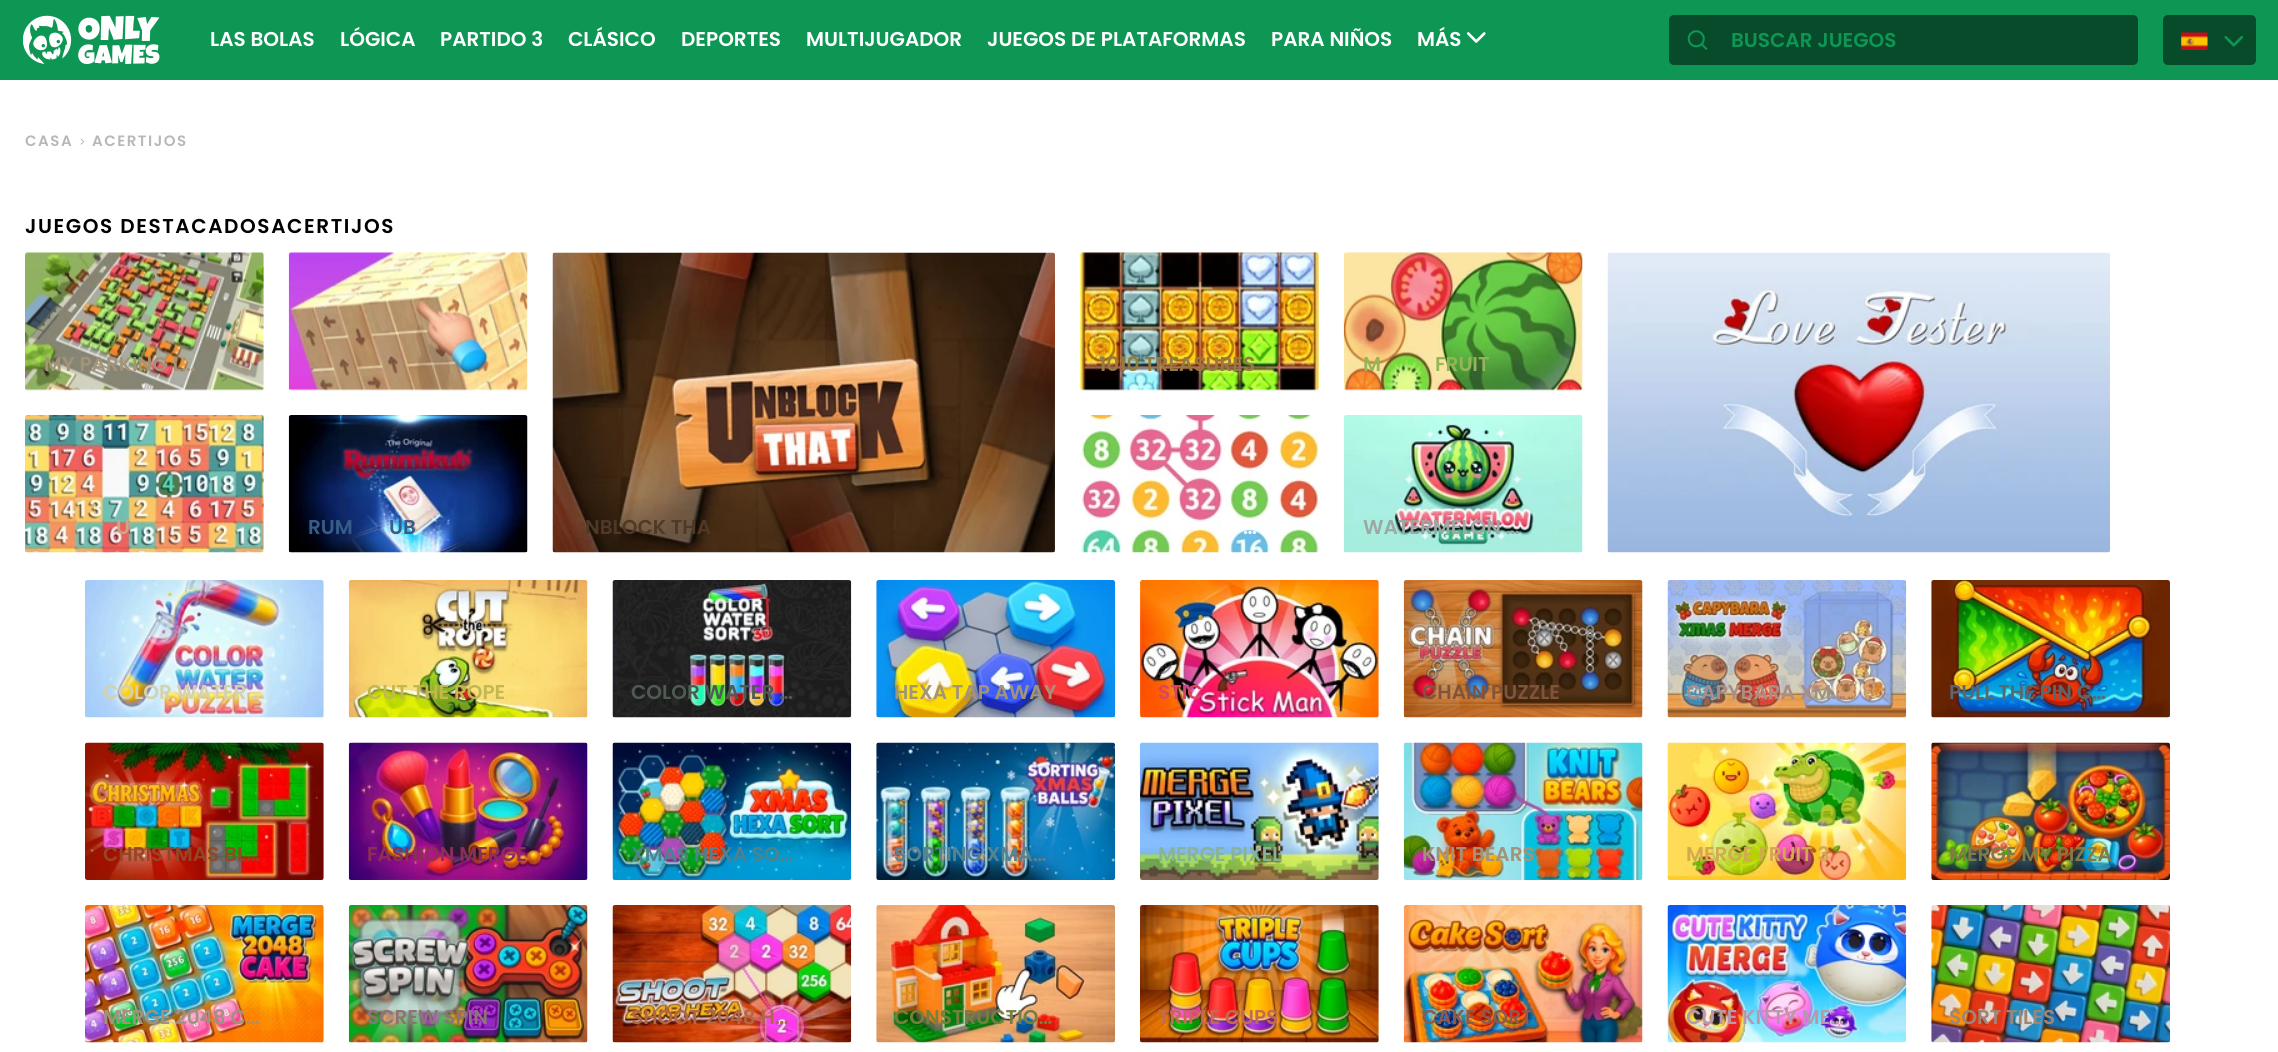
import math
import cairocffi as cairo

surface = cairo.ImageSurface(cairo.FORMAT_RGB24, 2278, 1052)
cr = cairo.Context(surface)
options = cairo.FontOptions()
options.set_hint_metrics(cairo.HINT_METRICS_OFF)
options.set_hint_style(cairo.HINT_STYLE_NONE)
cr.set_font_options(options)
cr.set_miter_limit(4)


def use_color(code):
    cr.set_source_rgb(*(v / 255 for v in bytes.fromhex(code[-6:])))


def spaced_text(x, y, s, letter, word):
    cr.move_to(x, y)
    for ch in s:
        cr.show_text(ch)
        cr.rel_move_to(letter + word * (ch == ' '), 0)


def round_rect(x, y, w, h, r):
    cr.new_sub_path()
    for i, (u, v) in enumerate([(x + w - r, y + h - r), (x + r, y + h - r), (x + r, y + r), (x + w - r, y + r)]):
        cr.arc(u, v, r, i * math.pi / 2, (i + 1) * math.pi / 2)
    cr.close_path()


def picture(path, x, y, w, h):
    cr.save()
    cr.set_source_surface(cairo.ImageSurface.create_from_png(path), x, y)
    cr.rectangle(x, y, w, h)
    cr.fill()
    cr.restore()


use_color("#ffffff")
cr.paint()
use_color("#0d9654")
cr.rectangle(0, 0, 2278, 80)
cr.fill()
picture("img1.png", 23, 15, 137, 50)
cr.select_font_face("Poppins SemiBold")
cr.set_font_size(20)
use_color("#ffffff")
cr.move_to(210, 46)
cr.show_text("LAS BOLAS")
cr.move_to(340, 46)
cr.show_text("LÓGICA")
cr.move_to(440, 46)
cr.show_text("PARTIDO 3")
cr.move_to(568, 46)
cr.show_text("CLÁSICO")
cr.move_to(681, 46)
cr.show_text("DEPORTES")
cr.move_to(806, 46)
cr.show_text("MULTIJUGADOR")
cr.move_to(987, 46)
cr.show_text("JUEGOS DE PLATAFORMAS")
cr.move_to(1271, 46)
cr.show_text("PARA NIÑOS")
cr.move_to(1417, 46)
cr.show_text("MÁS")
picture("img2.png", 1466, 32, 20, 11)
use_color("#074b2a")
round_rect(1669, 15, 469, 50, 5)
cr.fill()
picture("img3.png", 1687, 30, 21, 20)
use_color("#0d9654")
cr.move_to(1731, 47)
cr.show_text("BUSCAR JUEGOS")
use_color("#074b2a")
round_rect(2163, 15, 93, 50, 5)
cr.fill()
picture("img4.png", 2181, 32, 27, 18)
picture("img5.png", 2224, 36, 19, 11)
cr.set_font_size(15)
use_color("#b8b8b8")
spaced_text(25, 146, "CASA", 1.5, 0)
cr.select_font_face("Poppins")
cr.set_font_size(12)
cr.move_to(79, 146)
cr.show_text(">")
cr.select_font_face("Poppins SemiBold")
cr.set_font_size(15)
spaced_text(92, 146, "ACERTIJOS", 1.5, 0)
cr.set_font_size(20)
use_color("#000000")
spaced_text(25, 233, "JUEGOS DESTACADOSACERTIJOS", 1.6, 0)
picture("img6.png", 25, 252, 239, 139)
use_color("#a39479")
cr.move_to(44, 371)
cr.show_text("MY PARKING L…")
picture("img7.png", 288, 252, 240, 139)
picture("img8.png", 25, 415, 239, 138)
use_color("#cba789")
cr.move_to(116, 534)
cr.show_text("U")
picture("img9.png", 288, 415, 240, 138)
use_color("#375c8a")
cr.move_to(308, 534)
cr.show_text("RUM")
cr.move_to(389, 534)
cr.show_text("UB")
picture("img10.png", 552, 252, 503, 301)
use_color("#503826")
cr.move_to(585, 534)
cr.show_text("NBLOCK THA")
picture("img11.png", 1080, 252, 239, 139)
use_color("#967b3e")
cr.move_to(1099, 371)
cr.show_text("1010 TREASURES")
picture("img12.png", 1343, 252, 240, 139)
use_color("#94b656")
cr.move_to(1363, 371)
cr.show_text("M")
cr.move_to(1435, 371)
cr.show_text("FRUIT")
picture("img13.png", 1080, 415, 239, 138)
use_color("#f1f8f3")
cr.move_to(1243, 534)
cr.show_text("…")
picture("img14.png", 1343, 415, 240, 138)
use_color("#9da7a3")
cr.move_to(1363, 534)
cr.show_text("WATERMELON …")
picture("img15.png", 1607, 252, 503, 301)
picture("img16.png", 85, 580, 239, 138)
use_color("#d5d0ae")
cr.move_to(103, 699)
cr.show_text("COLOR WATER …")
picture("img17.png", 348, 580, 240, 138)
use_color("#c3b850")
cr.move_to(367, 699)
cr.show_text("CUT THE ROPE")
picture("img18.png", 612, 580, 240, 138)
use_color("#4e5b52")
cr.move_to(631, 699)
cr.show_text("COLOR WATER …")
picture("img19.png", 876, 580, 239, 138)
use_color("#a39479")
cr.move_to(894, 699)
cr.show_text("HEXA TAP AWAY")
picture("img20.png", 1140, 580, 239, 138)
use_color("#da4662")
cr.move_to(1158, 699)
cr.show_text("STIC")
picture("img21.png", 1403, 580, 240, 138)
use_color("#80543b")
cr.move_to(1422, 699)
cr.show_text("CHAIN PUZZLE")
picture("img22.png", 1667, 580, 240, 138)
use_color("#aa8d84")
cr.move_to(1686, 699)
cr.show_text("CAPYBARA XM…")
picture("img23.png", 1931, 580, 239, 138)
use_color("#5b676f")
cr.move_to(1949, 699)
cr.show_text("PULL THE PIN C…")
picture("img24.png", 85, 742, 239, 138)
use_color("#944726")
cr.move_to(103, 861)
cr.show_text("CHRISTMAS BL…")
picture("img25.png", 348, 742, 240, 138)
use_color("#8b2f57")
cr.move_to(367, 861)
cr.show_text("FASHION MERGE")
picture("img26.png", 612, 742, 240, 138)
use_color("#4e828d")
cr.move_to(631, 861)
cr.show_text("XMAS HEXA SO…")
picture("img27.png", 876, 742, 239, 138)
use_color("#578393")
cr.move_to(894, 861)
cr.show_text("SORTING XMA…")
picture("img28.png", 1140, 742, 239, 138)
use_color("#89b396")
cr.move_to(1158, 861)
cr.show_text("MERGE PIXEL")
picture("img29.png", 1403, 742, 240, 138)
use_color("#a39479")
cr.move_to(1422, 861)
cr.show_text("KNIT BEARS")
picture("img30.png", 1667, 742, 240, 138)
use_color("#d1aa4f")
cr.move_to(1686, 861)
cr.show_text("MERGE FRUIT 3")
picture("img31.png", 1931, 742, 239, 138)
use_color("#817c45")
cr.move_to(1949, 861)
cr.show_text("MERGE MY PIZZA")
picture("img32.png", 85, 905, 239, 138)
use_color("#a39180")
cr.move_to(103, 1024)
cr.show_text("MERGE 2048 C…")
picture("img33.png", 348, 905, 240, 138)
use_color("#8a7676")
cr.move_to(367, 1024)
cr.show_text("SCREW SPIN")
picture("img34.png", 612, 905, 240, 138)
use_color("#b36645")
cr.move_to(631, 1024)
cr.show_text("SHOOT 2048 H…")
picture("img35.png", 876, 905, 239, 138)
use_color("#787d40")
cr.move_to(894, 1024)
cr.show_text("CONSTRUCTIO…")
picture("img36.png", 1140, 905, 239, 138)
use_color("#c36a52")
cr.move_to(1158, 1024)
cr.show_text("TRIPLE CUPS")
picture("img37.png", 1403, 905, 240, 138)
use_color("#8d5b4c")
cr.move_to(1422, 1024)
cr.show_text("CAKE SORT")
picture("img38.png", 1667, 905, 240, 138)
use_color("#b699ad")
cr.move_to(1686, 1024)
cr.show_text("CUTE KITTY ME…")
picture("img39.png", 1931, 905, 239, 138)
use_color("#9e8576")
cr.move_to(1949, 1024)
cr.show_text("SORT TILES")
surface.write_to_png("result.png")
